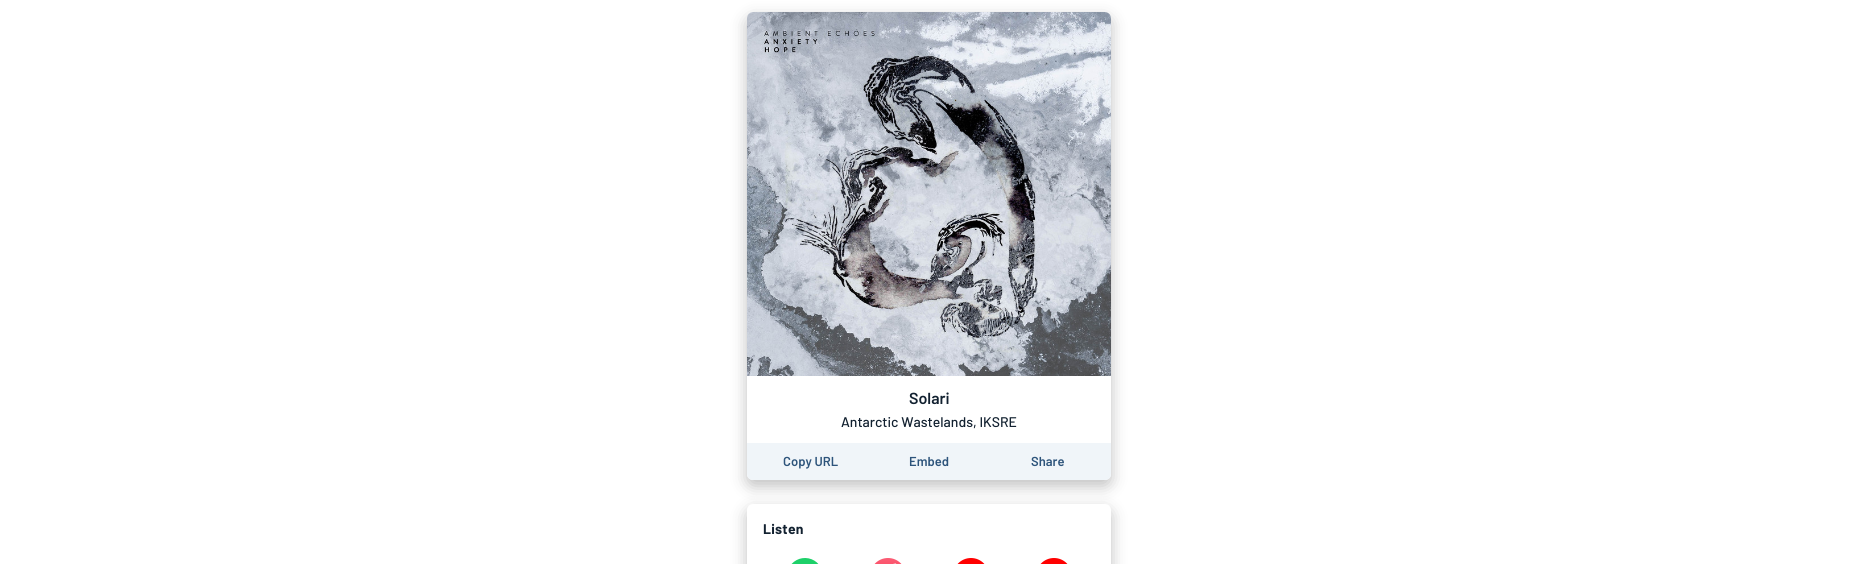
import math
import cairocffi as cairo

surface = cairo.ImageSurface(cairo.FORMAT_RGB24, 1858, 564)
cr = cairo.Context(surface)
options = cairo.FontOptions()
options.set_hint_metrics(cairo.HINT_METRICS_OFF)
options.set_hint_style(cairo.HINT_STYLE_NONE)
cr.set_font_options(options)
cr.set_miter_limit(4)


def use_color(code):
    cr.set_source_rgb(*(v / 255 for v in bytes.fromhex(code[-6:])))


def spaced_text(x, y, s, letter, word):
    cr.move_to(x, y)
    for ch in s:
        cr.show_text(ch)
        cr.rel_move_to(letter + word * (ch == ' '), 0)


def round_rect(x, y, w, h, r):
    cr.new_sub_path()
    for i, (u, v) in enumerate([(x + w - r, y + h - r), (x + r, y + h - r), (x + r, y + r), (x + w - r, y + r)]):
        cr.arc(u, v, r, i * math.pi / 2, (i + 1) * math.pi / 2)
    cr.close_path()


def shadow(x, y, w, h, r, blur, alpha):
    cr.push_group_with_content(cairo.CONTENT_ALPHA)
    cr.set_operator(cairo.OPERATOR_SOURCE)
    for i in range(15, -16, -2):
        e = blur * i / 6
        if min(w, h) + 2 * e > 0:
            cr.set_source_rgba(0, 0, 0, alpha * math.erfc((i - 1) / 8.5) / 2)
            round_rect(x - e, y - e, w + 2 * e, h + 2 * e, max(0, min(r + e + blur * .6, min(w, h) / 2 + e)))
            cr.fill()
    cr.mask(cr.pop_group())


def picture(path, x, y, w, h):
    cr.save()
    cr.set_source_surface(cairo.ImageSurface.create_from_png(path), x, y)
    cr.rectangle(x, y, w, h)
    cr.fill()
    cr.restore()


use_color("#ffffff")
cr.paint()
use_color("#000000")
shadow(747, 18, 364, 468, 6, 8, 0.25)
use_color("#ffffff")
round_rect(747, 12, 364, 468, 6)
cr.fill()
picture("img1.png", 747, 12, 364, 364)
cr.select_font_face("Barlow SemiBold")
cr.set_font_size(16)
use_color("#122130")
cr.move_to(909, 404)
cr.show_text("Solari")
cr.select_font_face("Barlow Medium")
cr.set_font_size(14)
cr.move_to(841, 427)
cr.show_text("Antarctic Wastelands, IKSRE")
use_color("#f0f5f9")
cr.new_path()
cr.move_to(747, 443)
cr.line_to(1111, 443)
cr.line_to(1111, 474)
cr.curve_to(1111, 477.5, 1108.5, 480, 1105, 480)
cr.line_to(753, 480)
cr.curve_to(749.5, 480, 747, 477.5, 747, 474)
cr.close_path()
cr.fill()
cr.select_font_face("Barlow SemiBold")
cr.set_font_size(13)
use_color("#2d547b")
cr.move_to(783, 466)
cr.show_text("Copy URL")
cr.move_to(909, 466)
cr.show_text("Embed")
cr.move_to(1031, 466)
cr.show_text("Share")
use_color("#000000")
shadow(747, 510, 364, 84, 6, 8, 0.25)
use_color("#ffffff")
round_rect(747, 504, 364, 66, 6)
cr.fill()
cr.select_font_face("Barlow", cairo.FONT_SLANT_NORMAL, cairo.FONT_WEIGHT_BOLD)
cr.set_font_size(14)
use_color("#122130")
spaced_text(763, 534, "Listen", 0.25, 0)
picture("img2.png", 791, 558, 28, 6)
picture("img3.png", 874, 558, 28, 6)
picture("img4.png", 957, 558, 28, 6)
picture("img4.png", 1040, 558, 28, 6)
surface.write_to_png("result.png")
